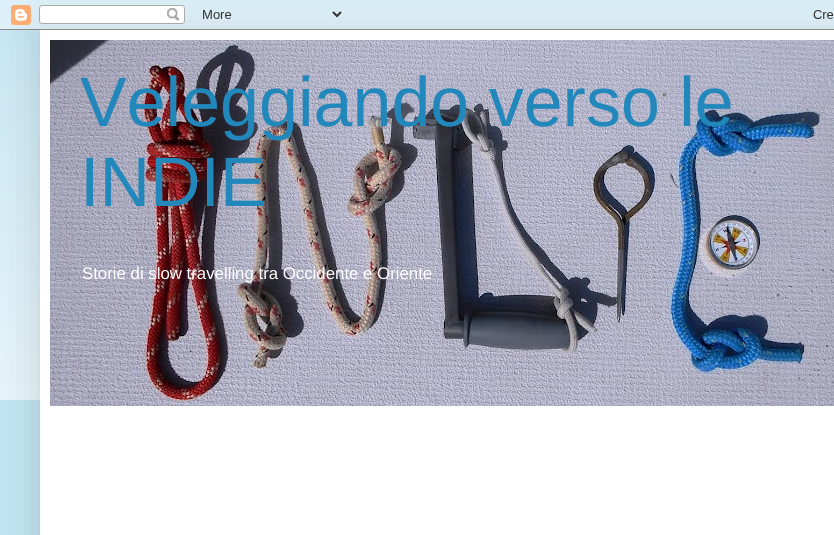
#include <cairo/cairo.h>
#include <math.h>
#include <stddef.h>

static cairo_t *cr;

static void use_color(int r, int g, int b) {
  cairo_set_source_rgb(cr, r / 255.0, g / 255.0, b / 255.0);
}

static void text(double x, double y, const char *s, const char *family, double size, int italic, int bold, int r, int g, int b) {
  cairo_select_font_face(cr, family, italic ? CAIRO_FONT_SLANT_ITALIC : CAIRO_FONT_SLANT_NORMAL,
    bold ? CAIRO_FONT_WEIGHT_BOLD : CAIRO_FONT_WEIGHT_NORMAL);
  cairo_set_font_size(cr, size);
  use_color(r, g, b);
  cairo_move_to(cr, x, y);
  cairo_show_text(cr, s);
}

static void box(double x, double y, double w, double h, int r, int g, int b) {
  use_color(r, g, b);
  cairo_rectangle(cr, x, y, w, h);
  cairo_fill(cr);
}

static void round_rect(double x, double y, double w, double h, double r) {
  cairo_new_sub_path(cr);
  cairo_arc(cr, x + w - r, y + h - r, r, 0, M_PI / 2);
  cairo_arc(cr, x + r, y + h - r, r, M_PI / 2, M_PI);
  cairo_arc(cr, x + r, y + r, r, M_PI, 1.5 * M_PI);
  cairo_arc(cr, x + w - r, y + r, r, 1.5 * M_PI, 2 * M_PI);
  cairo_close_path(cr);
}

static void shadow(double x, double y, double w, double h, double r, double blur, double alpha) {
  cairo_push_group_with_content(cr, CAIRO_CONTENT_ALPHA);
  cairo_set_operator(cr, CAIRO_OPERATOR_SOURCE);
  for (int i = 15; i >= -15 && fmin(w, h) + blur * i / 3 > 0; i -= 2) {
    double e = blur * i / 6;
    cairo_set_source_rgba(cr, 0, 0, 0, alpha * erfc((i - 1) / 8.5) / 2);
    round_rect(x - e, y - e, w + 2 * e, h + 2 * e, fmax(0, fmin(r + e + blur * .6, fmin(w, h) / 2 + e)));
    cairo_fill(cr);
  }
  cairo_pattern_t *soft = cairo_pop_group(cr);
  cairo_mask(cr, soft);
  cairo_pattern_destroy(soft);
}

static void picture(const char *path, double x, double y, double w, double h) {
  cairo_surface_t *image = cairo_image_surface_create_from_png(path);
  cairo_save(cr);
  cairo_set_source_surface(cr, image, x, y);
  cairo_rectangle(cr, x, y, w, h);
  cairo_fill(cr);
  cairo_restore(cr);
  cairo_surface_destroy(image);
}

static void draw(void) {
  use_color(194, 228, 242);
  cairo_paint(cr);
  picture("img_02.png", 0, 10, 834, 390);
  use_color(0, 0, 0);
  shadow(40, 30, 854, 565, 0, 20, 0.15);
  picture("img_01.png", 0, 0, 834, 30);
  box(40, 30, 794, 505, 255, 255, 255);
  picture("img_03.png", 50, 40, 784, 366);
  text(80, 126, "Veleggiando verso le", "Liberation Sans", 70, 0, 0, 34, 136, 187);
  text(80, 206, "INDIE", "Liberation Sans", 70, 0, 0, 34, 136, 187);
  text(82, 279, "Storie di slow travelling tra Occidente e Oriente", "Liberation Sans", 16.8, 0, 0, 255, 255, 255);
}

int main(void) {
  cairo_surface_t *surface = cairo_image_surface_create(CAIRO_FORMAT_RGB24, 834, 535);
  cr = cairo_create(surface);
  cairo_font_options_t *options = cairo_font_options_create();
  cairo_font_options_set_hint_metrics(options, CAIRO_HINT_METRICS_OFF);
  cairo_font_options_set_hint_style(options, CAIRO_HINT_STYLE_NONE);
  cairo_set_font_options(cr, options);
  cairo_set_miter_limit(cr, 4);
  draw();
  cairo_surface_write_to_png(surface, "out.png");
  cairo_font_options_destroy(options);
  cairo_destroy(cr);
  cairo_surface_destroy(surface);
  return 0;
}
